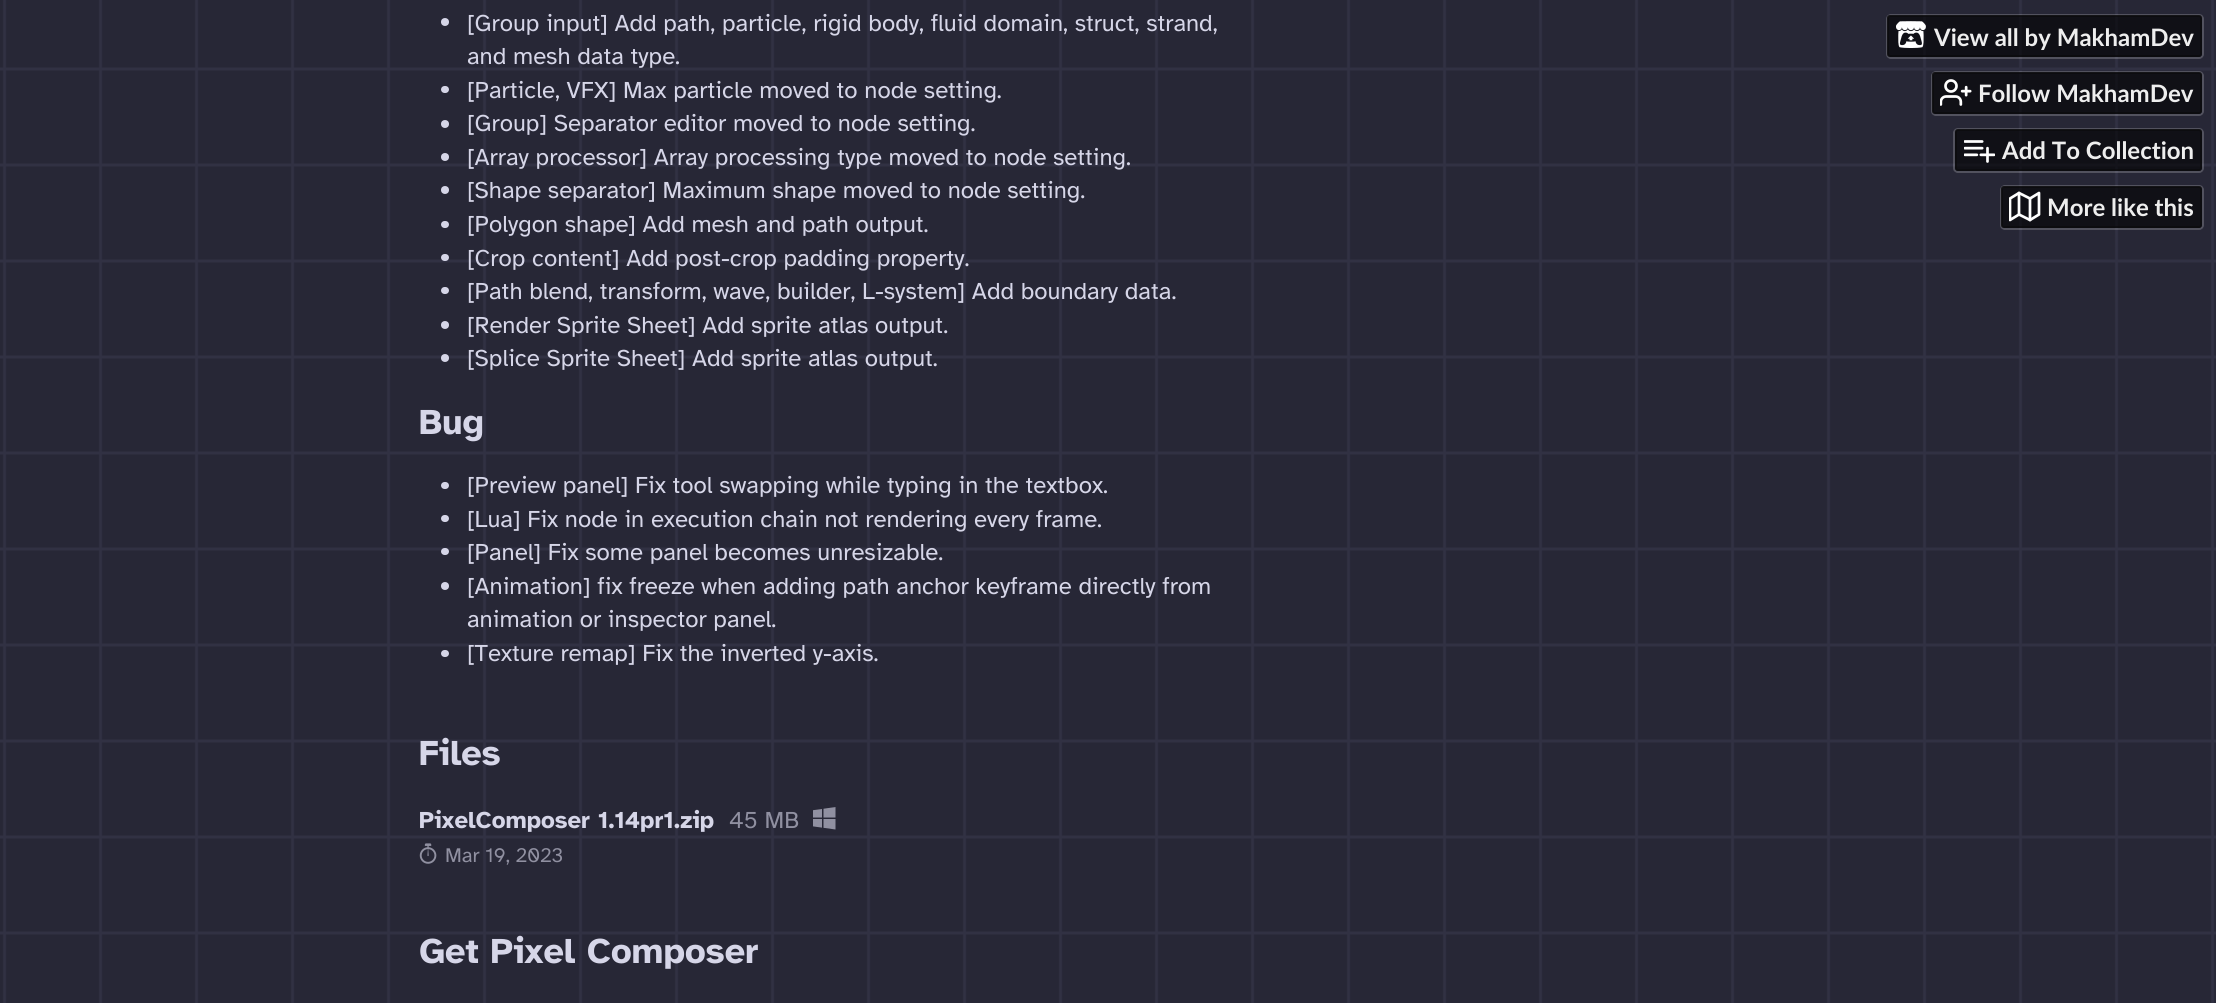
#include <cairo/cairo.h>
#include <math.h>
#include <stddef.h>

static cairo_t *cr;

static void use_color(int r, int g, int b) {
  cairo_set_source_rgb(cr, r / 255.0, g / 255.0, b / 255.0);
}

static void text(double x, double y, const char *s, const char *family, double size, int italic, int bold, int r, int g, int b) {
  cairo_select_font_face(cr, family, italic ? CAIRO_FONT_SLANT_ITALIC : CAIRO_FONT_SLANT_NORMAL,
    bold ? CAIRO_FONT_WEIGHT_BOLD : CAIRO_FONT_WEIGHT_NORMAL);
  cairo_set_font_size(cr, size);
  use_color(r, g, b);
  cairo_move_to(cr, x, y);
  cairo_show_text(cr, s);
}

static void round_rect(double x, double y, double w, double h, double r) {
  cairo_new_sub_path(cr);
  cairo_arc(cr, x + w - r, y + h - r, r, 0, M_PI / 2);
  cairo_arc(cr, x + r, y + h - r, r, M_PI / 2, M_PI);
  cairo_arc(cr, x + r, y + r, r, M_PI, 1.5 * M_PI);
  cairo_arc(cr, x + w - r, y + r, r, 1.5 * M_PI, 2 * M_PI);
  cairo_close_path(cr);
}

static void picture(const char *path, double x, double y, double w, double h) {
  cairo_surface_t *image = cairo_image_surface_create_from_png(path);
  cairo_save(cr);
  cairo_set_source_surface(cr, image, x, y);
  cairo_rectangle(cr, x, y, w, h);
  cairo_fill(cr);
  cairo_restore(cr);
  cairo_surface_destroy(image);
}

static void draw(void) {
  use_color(255, 255, 255);
  cairo_paint(cr);
  picture("img_01.png", 0, 0, 2216, 1003);
  use_color(214, 214, 232);
  cairo_arc(cr, 445, 22, 4, 0, 2 * M_PI);
  cairo_fill(cr);
  round_rect(441, 86, 8, 7, 3.5);
  cairo_fill(cr);
  cairo_arc(cr, 445, 124, 4, 0, 2 * M_PI);
  cairo_fill(cr);
  cairo_arc(cr, 445, 157, 4, 0, 2 * M_PI);
  cairo_fill(cr);
  cairo_arc(cr, 445, 190, 4, 0, 2 * M_PI);
  cairo_fill(cr);
  round_rect(441, 221, 8, 7, 3.5);
  cairo_fill(cr);
  round_rect(441, 254, 8, 7, 3.5);
  cairo_fill(cr);
  round_rect(441, 287, 8, 7, 3.5);
  cairo_fill(cr);
  cairo_arc(cr, 445, 325, 4, 0, 2 * M_PI);
  cairo_fill(cr);
  cairo_arc(cr, 445, 358, 4, 0, 2 * M_PI);
  cairo_fill(cr);
  round_rect(441, 482, 8, 7, 3.5);
  cairo_fill(cr);
  round_rect(441, 515, 8, 7, 3.5);
  cairo_fill(cr);
  round_rect(441, 548, 8, 7, 3.5);
  cairo_fill(cr);
  cairo_arc(cr, 445, 586, 4, 0, 2 * M_PI);
  cairo_fill(cr);
  round_rect(441, 650, 8, 7, 3.5);
  cairo_fill(cr);
  picture("img_02.png", 813, 807, 23, 23);
  picture("img_03.png", 419, 843, 18, 21);
  round_rect(1887, 15, 316, 43, 4);
  cairo_set_source_rgba(cr, 1, 1, 1, 0.2);
  cairo_stroke(cr);
  cairo_set_source_rgba(cr, 0, 0, 0, 0.6);
  round_rect(1887, 15, 315, 42, 3);
  cairo_fill(cr);
  round_rect(1888, 16, 313, 40, 2);
  cairo_set_source_rgba(cr, 0.039, 0.039, 0.039, 0.5);
  cairo_stroke(cr);
  picture("img_04.png", 1896, 21, 30, 27);
  round_rect(1932, 72, 271, 43, 4);
  cairo_set_source_rgba(cr, 1, 1, 1, 0.2);
  cairo_stroke(cr);
  cairo_set_source_rgba(cr, 0, 0, 0, 0.6);
  round_rect(1932, 72, 270, 42, 3);
  cairo_fill(cr);
  round_rect(1933, 73, 268, 40, 2);
  cairo_set_source_rgba(cr, 0.039, 0.039, 0.039, 0.5);
  cairo_stroke(cr);
  picture("img_05.png", 1940, 79, 32, 27);
  round_rect(1954, 129, 249, 43, 4);
  cairo_set_source_rgba(cr, 1, 1, 1, 0.2);
  cairo_stroke(cr);
  cairo_set_source_rgba(cr, 0, 0, 0, 0.6);
  round_rect(1955, 129, 247, 42, 3);
  cairo_fill(cr);
  round_rect(1956, 130, 245, 40, 2);
  cairo_set_source_rgba(cr, 0.039, 0.039, 0.039, 0.5);
  cairo_stroke(cr);
  picture("img_06.png", 1964, 140, 31, 23);
  round_rect(2001, 186, 202, 43, 4);
  cairo_set_source_rgba(cr, 1, 1, 1, 0.2);
  cairo_stroke(cr);
  cairo_set_source_rgba(cr, 0, 0, 0, 0.6);
  round_rect(2001, 186, 201, 42, 3);
  cairo_fill(cr);
  round_rect(2002, 187, 199, 40, 2);
  cairo_set_source_rgba(cr, 0.039, 0.039, 0.039, 0.5);
  cairo_stroke(cr);
  cairo_save(cr);
  cairo_rectangle(cr, 2009, 191, 33, 31);
  cairo_clip(cr);
  cairo_new_path(cr);
  cairo_move_to(cr, 2010, 198.5);
  cairo_line_to(cr, 2010, 220);
  cairo_line_to(cr, 2019, 214.5);
  cairo_line_to(cr, 2030, 220);
  cairo_line_to(cr, 2039, 214.5);
  cairo_line_to(cr, 2039, 193);
  cairo_line_to(cr, 2030, 198.5);
  cairo_line_to(cr, 2019, 193);
  cairo_close_path(cr);
  use_color(255, 255, 255);
  cairo_set_line_width(cr, 2.7);
  cairo_set_line_cap(cr, CAIRO_LINE_CAP_ROUND);
  cairo_set_line_join(cr, CAIRO_LINE_JOIN_ROUND);
  cairo_stroke(cr);
  cairo_restore(cr);
  cairo_new_path(cr);
  cairo_move_to(cr, 2019, 193);
  cairo_line_to(cr, 2019, 214.5);
  cairo_move_to(cr, 2030, 198.5);
  cairo_line_to(cr, 2030, 220);
  use_color(255, 255, 255);
  cairo_set_line_width(cr, 2.7);
  cairo_set_line_cap(cr, CAIRO_LINE_CAP_ROUND);
  cairo_set_line_join(cr, CAIRO_LINE_JOIN_ROUND);
  cairo_stroke(cr);
  text(467, 31, "[Group input] Add path, particle, rigid body, fluid domain, struct, strand,", "Atkinson Hyperlegible", 24, 0, 0, 214, 214, 232);
  text(467, 64, "and mesh data type.", "Atkinson Hyperlegible", 24, 0, 0, 214, 214, 232);
  text(467, 98, "[Particle, VFX] Max particle moved to node setting.", "Atkinson Hyperlegible", 24, 0, 0, 214, 214, 232);
  text(467, 131, "[Group] Separator editor moved to node setting.", "Atkinson Hyperlegible", 24, 0, 0, 214, 214, 232);
  text(467, 165, "[Array processor] Array processing type moved to node setting.", "Atkinson Hyperlegible", 24, 0, 0, 214, 214, 232);
  text(467, 198, "[Shape separator] Maximum shape moved to node setting.", "Atkinson Hyperlegible", 24, 0, 0, 214, 214, 232);
  text(467, 232, "[Polygon shape] Add mesh and path output.", "Atkinson Hyperlegible", 24, 0, 0, 214, 214, 232);
  text(467, 266, "[Crop content] Add post-crop padding property.", "Atkinson Hyperlegible", 24, 0, 0, 214, 214, 232);
  text(467, 299, "[Path blend, transform, wave, builder, L-system] Add boundary data.", "Atkinson Hyperlegible", 24, 0, 0, 214, 214, 232);
  text(467, 333, "[Render Sprite Sheet] Add sprite atlas output.", "Atkinson Hyperlegible", 24, 0, 0, 214, 214, 232);
  text(467, 366, "[Splice Sprite Sheet] Add sprite atlas output.", "Atkinson Hyperlegible", 24, 0, 0, 214, 214, 232);
  text(419, 434, "Bug", "Atkinson Hyperlegible", 36, 0, 1, 214, 214, 232);
  text(467, 493, "[Preview panel] Fix tool swapping while typing in the textbox.", "Atkinson Hyperlegible", 24, 0, 0, 214, 214, 232);
  text(467, 527, "[Lua] Fix node in execution chain not rendering every frame.", "Atkinson Hyperlegible", 24, 0, 0, 214, 214, 232);
  text(467, 560, "[Panel] Fix some panel becomes unresizable.", "Atkinson Hyperlegible", 24, 0, 0, 214, 214, 232);
  text(467, 594, "[Animation] fix freeze when adding path anchor keyframe directly from", "Atkinson Hyperlegible", 24, 0, 0, 214, 214, 232);
  text(467, 627, "animation or inspector panel.", "Atkinson Hyperlegible", 24, 0, 0, 214, 214, 232);
  text(467, 661, "[Texture remap] Fix the inverted y-axis.", "Atkinson Hyperlegible", 24, 0, 0, 214, 214, 232);
  text(419, 765, "Files", "Atkinson Hyperlegible", 36, 0, 1, 214, 214, 232);
  text(419, 828, "PixelComposer 1.14pr1.zip", "Atkinson Hyperlegible", 24, 0, 1, 214, 214, 232);
  text(729, 828, "45 MB", "Atkinson Hyperlegible", 24, 0, 0, 144, 144, 161);
  text(445, 862, "Mar 19, 2023", "Atkinson Hyperlegible", 20.5, 0, 0, 144, 144, 161);
  text(419, 963, "Get Pixel Composer", "Atkinson Hyperlegible", 36, 0, 1, 214, 214, 232);
  text(1934, 46, "View all by MakhamDev", "Lato", 24, 0, 1, 238, 238, 238);
  text(1978, 102, "Follow MakhamDev", "Lato", 24, 0, 1, 238, 238, 238);
  text(2002, 159, "Add To Collection", "Lato", 24, 0, 1, 238, 238, 238);
  text(2047, 216, "More like this", "Lato", 24, 0, 1, 238, 238, 238);
}

int main(void) {
  cairo_surface_t *surface = cairo_image_surface_create(CAIRO_FORMAT_RGB24, 2216, 1003);
  cr = cairo_create(surface);
  cairo_font_options_t *options = cairo_font_options_create();
  cairo_font_options_set_hint_metrics(options, CAIRO_HINT_METRICS_OFF);
  cairo_font_options_set_hint_style(options, CAIRO_HINT_STYLE_NONE);
  cairo_set_font_options(cr, options);
  cairo_set_miter_limit(cr, 4);
  draw();
  cairo_surface_write_to_png(surface, "out.png");
  cairo_font_options_destroy(options);
  cairo_destroy(cr);
  cairo_surface_destroy(surface);
  return 0;
}
